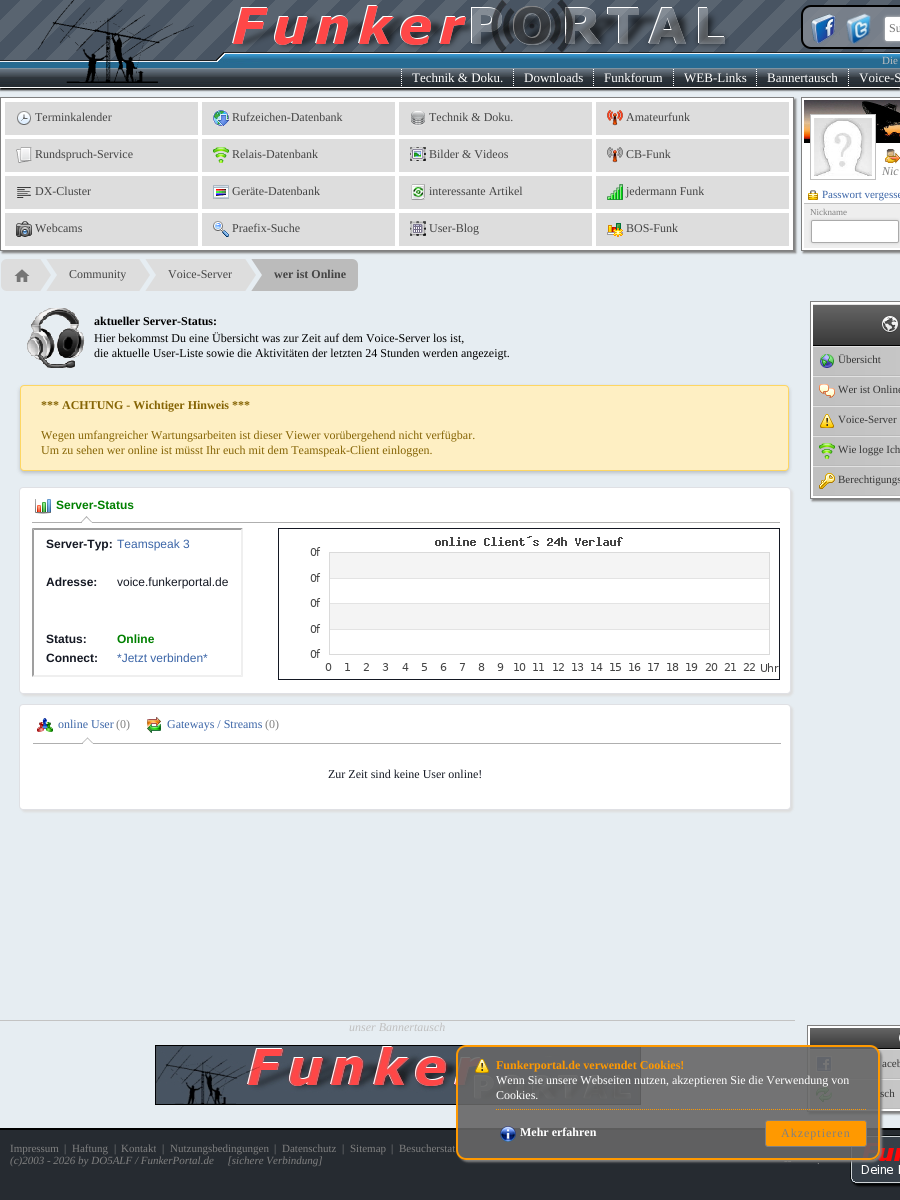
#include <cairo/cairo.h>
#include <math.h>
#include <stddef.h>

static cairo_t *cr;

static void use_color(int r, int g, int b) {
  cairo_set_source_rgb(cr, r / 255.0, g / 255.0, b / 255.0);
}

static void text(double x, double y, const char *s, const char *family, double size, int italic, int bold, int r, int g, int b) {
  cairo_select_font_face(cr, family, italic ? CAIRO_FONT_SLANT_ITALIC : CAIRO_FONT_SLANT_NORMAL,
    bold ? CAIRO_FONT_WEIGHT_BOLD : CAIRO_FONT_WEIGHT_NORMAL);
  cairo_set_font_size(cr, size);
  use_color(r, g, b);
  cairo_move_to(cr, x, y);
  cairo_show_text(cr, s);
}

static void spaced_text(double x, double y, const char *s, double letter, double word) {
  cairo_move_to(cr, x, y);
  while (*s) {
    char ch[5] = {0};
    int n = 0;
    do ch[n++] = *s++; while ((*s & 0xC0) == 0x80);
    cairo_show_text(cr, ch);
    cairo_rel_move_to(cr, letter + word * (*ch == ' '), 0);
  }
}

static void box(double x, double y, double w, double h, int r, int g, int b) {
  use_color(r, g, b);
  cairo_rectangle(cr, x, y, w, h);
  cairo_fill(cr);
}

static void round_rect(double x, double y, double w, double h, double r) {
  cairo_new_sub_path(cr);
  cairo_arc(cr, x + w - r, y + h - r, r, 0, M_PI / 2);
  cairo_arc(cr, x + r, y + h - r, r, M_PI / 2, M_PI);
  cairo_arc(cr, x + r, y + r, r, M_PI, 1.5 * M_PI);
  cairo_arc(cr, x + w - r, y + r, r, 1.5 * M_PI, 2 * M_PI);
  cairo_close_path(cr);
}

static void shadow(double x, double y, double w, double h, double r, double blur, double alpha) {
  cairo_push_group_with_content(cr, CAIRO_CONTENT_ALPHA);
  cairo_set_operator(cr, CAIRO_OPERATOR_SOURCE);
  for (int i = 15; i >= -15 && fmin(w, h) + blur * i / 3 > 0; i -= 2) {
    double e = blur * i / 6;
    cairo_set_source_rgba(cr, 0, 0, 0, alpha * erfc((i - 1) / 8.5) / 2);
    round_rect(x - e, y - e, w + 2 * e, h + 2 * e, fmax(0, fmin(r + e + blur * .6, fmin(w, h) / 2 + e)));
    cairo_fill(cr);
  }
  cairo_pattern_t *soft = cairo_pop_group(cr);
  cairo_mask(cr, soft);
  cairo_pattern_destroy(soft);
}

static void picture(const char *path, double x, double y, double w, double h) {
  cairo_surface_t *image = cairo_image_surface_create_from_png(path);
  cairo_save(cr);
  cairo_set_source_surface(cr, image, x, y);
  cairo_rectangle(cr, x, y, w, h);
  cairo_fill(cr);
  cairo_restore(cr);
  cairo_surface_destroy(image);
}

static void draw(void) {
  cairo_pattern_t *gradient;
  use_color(230, 237, 242);
  cairo_paint(cr);
  use_color(0, 0, 0);
  shadow(0, 2, 900, 88, 0, 1, 1);
  box(0, 0, 900, 60, 72, 84, 98);
  picture("img_01.png", 0, 0, 900, 60);
  box(0, 87, 900, 1, 255, 255, 255);
  picture("img_05.png", 0, 60, 450, 27);
  picture("img_06.png", 450, 52, 450, 35);
  picture("img_02.png", 38, 0, 691, 83);
  cairo_set_source_rgba(cr, 0.514, 0.541, 0.58, 0.8);
  round_rect(802, 6, 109, 42, 9);
  cairo_fill_preserve(cr);
  use_color(0, 0, 0);
  cairo_stroke(cr);
  picture("img_03.png", 811, 14, 29, 30);
  picture("img_04.png", 846, 13, 25, 31);
  use_color(204, 204, 204);
  shadow(885, 17, 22, 24, 2, 1.5, 1);
  use_color(255, 255, 255);
  round_rect(885.5, 17.5, 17, 23, 1.5);
  cairo_fill_preserve(cr);
  cairo_set_line_width(cr, 1);
  cairo_stroke(cr);
  cairo_new_path(cr);
  cairo_move_to(cr, 401.5, 69);
  cairo_line_to(cr, 401.5, 87);
  cairo_set_dash(cr, (double[]){1, 1}, 2, 0);
  cairo_stroke(cr);
  cairo_new_path(cr);
  cairo_move_to(cr, 513.5, 69);
  cairo_line_to(cr, 513.5, 87);
  cairo_stroke(cr);
  cairo_new_path(cr);
  cairo_move_to(cr, 593.5, 69);
  cairo_line_to(cr, 593.5, 87);
  cairo_stroke(cr);
  cairo_new_path(cr);
  cairo_move_to(cr, 673.5, 69);
  cairo_line_to(cr, 673.5, 87);
  cairo_stroke(cr);
  cairo_new_path(cr);
  cairo_move_to(cr, 756.5, 69);
  cairo_line_to(cr, 756.5, 87);
  cairo_stroke(cr);
  cairo_new_path(cr);
  cairo_move_to(cr, 848.5, 69);
  cairo_line_to(cr, 848.5, 87);
  cairo_stroke(cr);
  use_color(128, 128, 128);
  shadow(2, 99, 794, 154, 0, 1, 1);
  use_color(255, 255, 255);
  cairo_rectangle(cr, 0.5, 97.5, 793, 153);
  cairo_fill_preserve(cr);
  use_color(128, 128, 128);
  cairo_set_dash(cr, NULL, 0, 0);
  cairo_stroke(cr);
  box(5, 102, 193, 33, 221, 221, 221);
  picture("img_07.png", 17, 111, 14, 14);
  box(202, 102, 193, 33, 221, 221, 221);
  picture("img_08.png", 213, 110, 16, 16);
  box(399, 102, 193, 33, 221, 221, 221);
  picture("img_09.png", 411, 111, 14, 15);
  box(596, 102, 193, 33, 221, 221, 221);
  picture("img_10.png", 607, 110, 16, 16);
  box(5, 139, 193, 33, 221, 221, 221);
  picture("img_11.png", 16, 147, 16, 16);
  box(202, 139, 193, 33, 221, 221, 221);
  picture("img_12.png", 213, 147, 16, 16);
  box(399, 139, 193, 33, 221, 221, 221);
  picture("img_13.png", 410, 147, 16, 14);
  box(596, 139, 193, 33, 221, 221, 221);
  picture("img_14.png", 607, 147, 16, 16);
  box(5, 176, 193, 33, 221, 221, 221);
  picture("img_15.png", 17, 187, 14, 11);
  box(202, 176, 193, 33, 221, 221, 221);
  picture("img_16.png", 213, 185, 16, 14);
  box(399, 176, 193, 33, 221, 221, 221);
  picture("img_17.png", 411, 184, 14, 16);
  box(596, 176, 193, 33, 221, 221, 221);
  picture("img_18.png", 607, 184, 16, 16);
  box(5, 213, 193, 33, 221, 221, 221);
  picture("img_19.png", 16, 221, 16, 16);
  box(202, 213, 193, 33, 221, 221, 221);
  picture("img_20.png", 213, 221, 16, 16);
  box(399, 213, 193, 33, 221, 221, 221);
  picture("img_21.png", 410, 221, 16, 15);
  box(596, 213, 193, 33, 221, 221, 221);
  picture("img_22.png", 607, 223, 16, 14);
  use_color(128, 128, 128);
  shadow(803, 99, 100, 154, 0, 1, 1);
  use_color(255, 255, 255);
  cairo_rectangle(cr, 801.5, 97.5, 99, 153);
  cairo_fill_preserve(cr);
  use_color(128, 128, 128);
  cairo_stroke(cr);
  picture("img_23.png", 804, 100, 96, 43);
  box(811, 115, 64, 28, 255, 255, 255);
  cairo_rectangle(cr, 810.5, 114.5, 65, 65);
  use_color(192, 192, 192);
  cairo_stroke(cr);
  picture("img_24.png", 814, 118, 58, 58);
  picture("img_25.png", 885, 149, 15, 15);
  picture("img_26.png", 808, 190, 10, 10);
  box(804, 204, 96, 44, 238, 238, 238);
  box(804, 203, 96, 1, 192, 192, 192);
  use_color(204, 204, 204);
  shadow(811, 220, 88, 23, 2, 1.5, 1);
  use_color(255, 255, 255);
  round_rect(811.5, 220.5, 87, 22, 1.5);
  cairo_fill_preserve(cr);
  use_color(170, 170, 170);
  cairo_stroke(cr);
  use_color(221, 221, 221);
  cairo_new_path(cr);
  cairo_move_to(cr, 7, 259);
  cairo_line_to(cr, 39, 259);
  cairo_line_to(cr, 39, 291);
  cairo_line_to(cr, 7, 291);
  cairo_curve_to(cr, 3.5, 291, 1, 288.5, 1, 285);
  cairo_line_to(cr, 1, 265);
  cairo_curve_to(cr, 1, 261.5, 3.5, 259, 7, 259);
  cairo_close_path(cr);
  cairo_fill(cr);
  picture("img_27.png", 14, 269, 16, 13);
  cairo_save(cr);
  cairo_rectangle(cr, 0, 259, 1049, 32);
  cairo_clip(cr);
  cairo_new_path(cr);
  cairo_move_to(cr, 39, 293);
  cairo_line_to(cr, 39, 257);
  cairo_line_to(cr, 51, 275);
  cairo_close_path(cr);
  cairo_fill(cr);
  cairo_restore(cr);
  box(57, 259, 81, 32, 221, 221, 221);
  cairo_save(cr);
  cairo_rectangle(cr, 0, 259, 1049, 32);
  cairo_clip(cr);
  cairo_new_path(cr);
  cairo_move_to(cr, 45, 257);
  cairo_line_to(cr, 57, 257);
  cairo_line_to(cr, 57, 275);
  cairo_close_path(cr);
  cairo_move_to(cr, 57, 293);
  cairo_line_to(cr, 45, 293);
  cairo_line_to(cr, 57, 275);
  cairo_close_path(cr);
  cairo_fill(cr);
  cairo_new_path(cr);
  cairo_move_to(cr, 138, 293);
  cairo_line_to(cr, 138, 257);
  cairo_line_to(cr, 150, 275);
  cairo_close_path(cr);
  cairo_fill(cr);
  cairo_restore(cr);
  box(156, 259, 88, 32, 221, 221, 221);
  cairo_save(cr);
  cairo_rectangle(cr, 0, 259, 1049, 32);
  cairo_clip(cr);
  cairo_new_path(cr);
  cairo_move_to(cr, 144, 257);
  cairo_line_to(cr, 156, 257);
  cairo_line_to(cr, 156, 275);
  cairo_close_path(cr);
  cairo_move_to(cr, 156, 293);
  cairo_line_to(cr, 144, 293);
  cairo_line_to(cr, 156, 275);
  cairo_close_path(cr);
  cairo_fill(cr);
  cairo_new_path(cr);
  cairo_move_to(cr, 244, 293);
  cairo_line_to(cr, 244, 257);
  cairo_line_to(cr, 256, 275);
  cairo_close_path(cr);
  cairo_fill(cr);
  cairo_restore(cr);
  use_color(187, 187, 187);
  cairo_new_path(cr);
  cairo_move_to(cr, 262, 259);
  cairo_line_to(cr, 352, 259);
  cairo_curve_to(cr, 355.5, 259, 358, 261.5, 358, 265);
  cairo_line_to(cr, 358, 285);
  cairo_curve_to(cr, 358, 288.5, 355.5, 291, 352, 291);
  cairo_line_to(cr, 262, 291);
  cairo_close_path(cr);
  cairo_fill(cr);
  cairo_save(cr);
  cairo_rectangle(cr, 0, 259, 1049, 32);
  cairo_clip(cr);
  cairo_new_path(cr);
  cairo_move_to(cr, 250, 257);
  cairo_line_to(cr, 262, 257);
  cairo_line_to(cr, 262, 275);
  cairo_close_path(cr);
  cairo_move_to(cr, 262, 293);
  cairo_line_to(cr, 250, 293);
  cairo_line_to(cr, 262, 275);
  cairo_close_path(cr);
  cairo_fill(cr);
  cairo_restore(cr);
  picture("img_28.png", 27, 308, 58, 60);
  use_color(0, 0, 0);
  shadow(20, 387, 769, 86, 4, 2, 0.2);
  use_color(254, 239, 195);
  round_rect(20.5, 385.5, 768, 85, 3.5);
  cairo_fill_preserve(cr);
  use_color(253, 214, 99);
  cairo_stroke(cr);
  use_color(221, 221, 221);
  shadow(21, 489, 772, 207, 4, 1, 1);
  use_color(255, 255, 255);
  round_rect(19.5, 487.5, 771, 206, 3.5);
  cairo_fill_preserve(cr);
  use_color(223, 224, 228);
  cairo_stroke(cr);
  picture("img_29.png", 35, 499, 16, 15);
  box(32, 522, 50, 1, 175, 175, 175);
  cairo_new_path(cr);
  cairo_move_to(cr, 86.5, 516);
  cairo_line_to(cr, 92, 522);
  cairo_line_to(cr, 91.5, 522.5);
  cairo_line_to(cr, 86, 517);
  cairo_close_path(cr);
  cairo_fill(cr);
  cairo_new_path(cr);
  cairo_move_to(cr, 86.5, 516);
  cairo_line_to(cr, 87, 517);
  cairo_line_to(cr, 81.5, 522.5);
  cairo_line_to(cr, 81, 522);
  cairo_close_path(cr);
  cairo_fill(cr);
  box(92, 522, 688, 1, 175, 175, 175);
  use_color(159, 159, 159);
  cairo_new_path(cr);
  cairo_move_to(cr, 32, 528);
  cairo_line_to(cr, 243, 528);
  cairo_line_to(cr, 241, 530);
  cairo_line_to(cr, 34, 530);
  cairo_close_path(cr);
  cairo_fill(cr);
  use_color(239, 239, 239);
  cairo_new_path(cr);
  cairo_move_to(cr, 243, 528);
  cairo_line_to(cr, 243, 677);
  cairo_line_to(cr, 241, 675);
  cairo_line_to(cr, 241, 530);
  cairo_close_path(cr);
  cairo_fill(cr);
  cairo_new_path(cr);
  cairo_move_to(cr, 243, 677);
  cairo_line_to(cr, 32, 677);
  cairo_line_to(cr, 34, 675);
  cairo_line_to(cr, 241, 675);
  cairo_close_path(cr);
  cairo_fill(cr);
  use_color(159, 159, 159);
  cairo_new_path(cr);
  cairo_move_to(cr, 32, 677);
  cairo_line_to(cr, 32, 528);
  cairo_line_to(cr, 34, 530);
  cairo_line_to(cr, 34, 675);
  cairo_close_path(cr);
  cairo_fill(cr);
  cairo_rectangle(cr, 278.5, 528.5, 501, 151);
  use_color(20, 24, 35);
  cairo_stroke(cr);
  picture("img_30.png", 310, 536, 469, 136);
  use_color(221, 221, 221);
  shadow(21, 706, 772, 106, 4, 1, 1);
  use_color(255, 255, 255);
  round_rect(19.5, 704.5, 771, 105, 3.5);
  cairo_fill_preserve(cr);
  use_color(223, 224, 228);
  cairo_stroke(cr);
  picture("img_31.png", 37, 718, 16, 14);
  picture("img_32.png", 147, 717, 14, 16);
  box(33, 743, 50, 1, 175, 175, 175);
  cairo_new_path(cr);
  cairo_move_to(cr, 87.5, 737.5);
  cairo_line_to(cr, 93, 743);
  cairo_line_to(cr, 92.5, 743.5);
  cairo_line_to(cr, 87, 738);
  cairo_close_path(cr);
  cairo_fill(cr);
  cairo_new_path(cr);
  cairo_move_to(cr, 87.5, 737.5);
  cairo_line_to(cr, 88, 738);
  cairo_line_to(cr, 82.5, 743.5);
  cairo_line_to(cr, 82, 743);
  cairo_close_path(cr);
  cairo_fill(cr);
  box(93, 743, 688, 1, 175, 175, 175);
  use_color(128, 128, 128);
  shadow(812, 303, 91, 198, 0, 1, 1);
  use_color(255, 255, 255);
  cairo_rectangle(cr, 810.5, 301.5, 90, 197);
  cairo_fill_preserve(cr);
  use_color(128, 128, 128);
  cairo_stroke(cr);
  gradient = cairo_pattern_create_linear(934, 305, 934, 345);
  cairo_pattern_add_color_stop_rgba(gradient, 0, 0.396, 0.396, 0.396, 1);
  cairo_pattern_add_color_stop_rgba(gradient, 1, 0.22, 0.22, 0.22, 1);
  cairo_set_source(cr, gradient);
  cairo_pattern_destroy(gradient);
  cairo_rectangle(cr, 813, 305, 87, 40);
  cairo_fill(cr);
  box(813, 304, 87, 1, 226, 226, 226);
  box(813, 345, 87, 1, 0, 0, 0);
  picture("img_33.png", 882, 316, 16, 17);
  gradient = cairo_pattern_create_linear(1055, 361, 813, 361);
  cairo_pattern_add_color_stop_rgba(gradient, 0, 0.816, 0.816, 0.816, 1);
  cairo_pattern_add_color_stop_rgba(gradient, 1, 0.753, 0.753, 0.753, 1);
  cairo_set_source(cr, gradient);
  cairo_pattern_destroy(gradient);
  cairo_rectangle(cr, 813, 347, 87, 28);
  cairo_fill(cr);
  box(813, 346, 87, 1, 226, 226, 226);
  box(813, 375, 87, 1, 185, 185, 185);
  picture("img_34.png", 820, 354, 14, 14);
  gradient = cairo_pattern_create_linear(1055, 391, 813, 391);
  cairo_pattern_add_color_stop_rgba(gradient, 0, 0.816, 0.816, 0.816, 1);
  cairo_pattern_add_color_stop_rgba(gradient, 1, 0.753, 0.753, 0.753, 1);
  cairo_set_source(cr, gradient);
  cairo_pattern_destroy(gradient);
  cairo_rectangle(cr, 813, 377, 87, 28);
  cairo_fill(cr);
  box(813, 376, 87, 1, 226, 226, 226);
  box(813, 405, 87, 1, 185, 185, 185);
  picture("img_35.png", 819, 384, 16, 14);
  gradient = cairo_pattern_create_linear(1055, 421, 813, 421);
  cairo_pattern_add_color_stop_rgba(gradient, 0, 0.816, 0.816, 0.816, 1);
  cairo_pattern_add_color_stop_rgba(gradient, 1, 0.753, 0.753, 0.753, 1);
  cairo_set_source(cr, gradient);
  cairo_pattern_destroy(gradient);
  cairo_rectangle(cr, 813, 407, 87, 28);
  cairo_fill(cr);
  box(813, 406, 87, 1, 226, 226, 226);
  box(813, 435, 87, 1, 185, 185, 185);
  picture("img_36.png", 820, 414, 14, 14);
  gradient = cairo_pattern_create_linear(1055, 451, 813, 451);
  cairo_pattern_add_color_stop_rgba(gradient, 0, 0.816, 0.816, 0.816, 1);
  cairo_pattern_add_color_stop_rgba(gradient, 1, 0.753, 0.753, 0.753, 1);
  cairo_set_source(cr, gradient);
  cairo_pattern_destroy(gradient);
  cairo_rectangle(cr, 813, 437, 87, 28);
  cairo_fill(cr);
  box(813, 436, 87, 1, 226, 226, 226);
  box(813, 465, 87, 1, 185, 185, 185);
  picture("img_37.png", 819, 443, 16, 16);
  gradient = cairo_pattern_create_linear(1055, 481, 813, 481);
  cairo_pattern_add_color_stop_rgba(gradient, 0, 0.816, 0.816, 0.816, 1);
  cairo_pattern_add_color_stop_rgba(gradient, 1, 0.753, 0.753, 0.753, 1);
  cairo_set_source(cr, gradient);
  cairo_pattern_destroy(gradient);
  cairo_rectangle(cr, 813, 467, 87, 28);
  cairo_fill(cr);
  box(813, 466, 87, 1, 226, 226, 226);
  box(813, 495, 87, 1, 185, 185, 185);
  picture("img_38.png", 819, 473, 16, 16);
  box(0, 1020, 795, 1, 195, 195, 195);
  picture("img_39.png", 155, 1045, 486, 60);
  use_color(128, 128, 128);
  shadow(809, 1027, 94, 87, 0, 1, 1);
  use_color(255, 255, 255);
  cairo_rectangle(cr, 807.5, 1025.5, 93, 86);
  cairo_fill_preserve(cr);
  use_color(128, 128, 128);
  cairo_stroke(cr);
  gradient = cairo_pattern_create_linear(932, 1028, 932, 1048);
  cairo_pattern_add_color_stop_rgba(gradient, 0, 0.396, 0.396, 0.396, 1);
  cairo_pattern_add_color_stop_rgba(gradient, 1, 0.22, 0.22, 0.22, 1);
  cairo_set_source(cr, gradient);
  cairo_pattern_destroy(gradient);
  cairo_rectangle(cr, 810, 1028, 90, 20);
  cairo_fill(cr);
  box(810, 1048, 90, 1, 0, 0, 0);
  picture("img_40.png", 899, 1033, 1, 9);
  gradient = cairo_pattern_create_linear(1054, 1064, 810, 1064);
  cairo_pattern_add_color_stop_rgba(gradient, 0, 0.816, 0.816, 0.816, 1);
  cairo_pattern_add_color_stop_rgba(gradient, 1, 0.753, 0.753, 0.753, 1);
  cairo_set_source(cr, gradient);
  cairo_pattern_destroy(gradient);
  cairo_rectangle(cr, 810, 1050, 90, 28);
  cairo_fill(cr);
  box(810, 1049, 90, 1, 226, 226, 226);
  box(810, 1078, 90, 1, 185, 185, 185);
  picture("img_41.png", 816, 1056, 16, 16);
  gradient = cairo_pattern_create_linear(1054, 1094, 810, 1094);
  cairo_pattern_add_color_stop_rgba(gradient, 0, 0.816, 0.816, 0.816, 1);
  cairo_pattern_add_color_stop_rgba(gradient, 1, 0.753, 0.753, 0.753, 1);
  cairo_set_source(cr, gradient);
  cairo_pattern_destroy(gradient);
  cairo_rectangle(cr, 810, 1080, 90, 28);
  cairo_fill(cr);
  box(810, 1079, 90, 1, 226, 226, 226);
  box(810, 1108, 90, 1, 185, 185, 185);
  picture("img_42.png", 816, 1086, 16, 16);
  box(0, 1130, 900, 70, 38, 43, 49);
  box(0, 1128, 900, 2, 0, 0, 0);
  use_color(0, 0, 0);
  shadow(852, 1137, 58, 49, 7, 1, 1);
  picture("img_45.png", 850, 1135, 50, 49);
  cairo_save(cr);
  cairo_set_fill_rule(cr, CAIRO_FILL_RULE_EVEN_ODD);
  cairo_new_path(cr);
  cairo_move_to(cr, 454, 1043);
  cairo_line_to(cr, 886, 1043);
  cairo_line_to(cr, 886, 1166);
  cairo_line_to(cr, 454, 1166);
  cairo_close_path(cr);
  cairo_move_to(cr, 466, 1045);
  cairo_line_to(cr, 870, 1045);
  cairo_curve_to(cr, 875.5, 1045, 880, 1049.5, 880, 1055);
  cairo_line_to(cr, 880, 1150);
  cairo_curve_to(cr, 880, 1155.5, 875.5, 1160, 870, 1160);
  cairo_line_to(cr, 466, 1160);
  cairo_curve_to(cr, 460.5, 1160, 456, 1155.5, 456, 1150);
  cairo_line_to(cr, 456, 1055);
  cairo_curve_to(cr, 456, 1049.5, 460.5, 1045, 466, 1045);
  cairo_close_path(cr);
  cairo_clip(cr);
  use_color(128, 128, 128);
  shadow(458, 1047, 424, 115, 10, 1, 1);
  cairo_restore(cr);
  cairo_set_source_rgba(cr, 0.4, 0.4, 0.4, 0.9);
  round_rect(457, 1046, 422, 113, 9);
  cairo_fill_preserve(cr);
  use_color(255, 153, 0);
  cairo_set_line_width(cr, 2);
  cairo_stroke(cr);
  picture("img_43.png", 475, 1059, 14, 14);
  cairo_new_path(cr);
  cairo_move_to(cr, 496, 1109.5);
  cairo_line_to(cr, 680, 1109.5);
  cairo_set_line_width(cr, 1);
  cairo_set_dash(cr, (double[]){1, 1}, 2, 0);
  cairo_stroke(cr);
  picture("img_44.png", 500, 1126, 16, 16);
  cairo_new_path(cr);
  cairo_move_to(cr, 681, 1109.5);
  cairo_line_to(cr, 867, 1109.5);
  cairo_stroke(cr);
  round_rect(765.5, 1120.5, 101, 26, 2.5);
  cairo_fill_preserve(cr);
  use_color(128, 128, 128);
  cairo_set_dash(cr, NULL, 0, 0);
  cairo_stroke(cr);
  text(889, 32, "Su", "Liberation Serif", 12, 0, 0, 117, 117, 117);
  text(882, 64, "Die", "Liberation Serif", 11, 0, 0, 192, 192, 192);
  text(412, 82, "Technik & Doku.", "Liberation Serif", 13, 0, 0, 255, 255, 255);
  text(524, 82, "Downloads", "Liberation Serif", 13, 0, 0, 255, 255, 255);
  text(604, 82, "Funkforum", "Liberation Serif", 13, 0, 0, 255, 255, 255);
  text(684, 82, "WEB-Links", "Liberation Serif", 13, 0, 0, 255, 255, 255);
  text(767, 82, "Bannertausch", "Liberation Serif", 13, 0, 0, 255, 255, 255);
  text(859, 82, "Voice-S", "Liberation Serif", 13, 0, 0, 255, 255, 255);
  text(35, 121, "Terminkalender", "Liberation Serif", 12, 0, 0, 68, 68, 68);
  text(232, 121, "Rufzeichen-Datenbank", "Liberation Serif", 12, 0, 0, 68, 68, 68);
  text(429, 121, "Technik & Doku.", "Liberation Serif", 12, 0, 0, 68, 68, 68);
  text(626, 121, "Amateurfunk", "Liberation Serif", 12, 0, 0, 68, 68, 68);
  text(35, 158, "Rundspruch-Service", "Liberation Serif", 12, 0, 0, 68, 68, 68);
  text(232, 158, "Relais-Datenbank", "Liberation Serif", 12, 0, 0, 68, 68, 68);
  text(429, 158, "Bilder & Videos", "Liberation Serif", 12, 0, 0, 68, 68, 68);
  text(626, 158, "CB-Funk", "Liberation Serif", 12, 0, 0, 68, 68, 68);
  text(35, 195, "DX-Cluster", "Liberation Serif", 12, 0, 0, 68, 68, 68);
  text(232, 195, "Geräte-Datenbank", "Liberation Serif", 12, 0, 0, 68, 68, 68);
  text(429, 195, "interessante Artikel", "Liberation Serif", 12, 0, 0, 68, 68, 68);
  text(626, 195, "jedermann Funk", "Liberation Serif", 12, 0, 0, 68, 68, 68);
  text(35, 232, "Webcams", "Liberation Serif", 12, 0, 0, 68, 68, 68);
  text(232, 232, "Praefix-Suche", "Liberation Serif", 12, 0, 0, 68, 68, 68);
  text(429, 232, "User-Blog", "Liberation Serif", 12, 0, 0, 68, 68, 68);
  text(626, 232, "BOS-Funk", "Liberation Serif", 12, 0, 0, 68, 68, 68);
  text(882, 175, "Nic", "Liberation Serif", 12, 1, 0, 128, 128, 128);
  text(822, 198, "Passwort vergesse", "Liberation Serif", 11, 0, 0, 59, 101, 167);
  text(810, 215, "Nickname", "Liberation Serif", 9, 0, 0, 128, 128, 128);
  text(69, 278, "Community", "Liberation Serif", 12, 0, 0, 68, 68, 68);
  text(168, 278, "Voice-Server", "Liberation Serif", 12, 0, 0, 68, 68, 68);
  text(274, 278, "wer ist Online", "Liberation Serif", 12, 0, 1, 68, 68, 68);
  text(94, 325, "aktueller Server-Status:", "Liberation Serif", 12, 0, 1, 0, 0, 0);
  text(94, 342, "Hier bekommst Du eine Übersicht was zur Zeit auf dem Voice-Server los ist,", "Liberation Serif", 12, 0, 0, 0, 0, 0);
  text(94, 357, "die aktuelle User-Liste sowie die Aktivitäten der letzten 24 Stunden werden angezeigt.", "Liberation Serif", 12, 0, 0, 0, 0, 0);
  text(41, 409, "*** ACHTUNG - Wichtiger Hinweis ***", "Liberation Serif", 12, 0, 1, 133, 100, 4);
  text(41, 439, "Wegen umfangreicher Wartungsarbeiten ist dieser Viewer vorübergehend nicht verfügbar.", "Liberation Serif", 12, 0, 0, 133, 100, 4);
  text(41, 454, "Um zu sehen wer online ist müsst Ihr euch mit dem Teamspeak-Client einloggen.", "Liberation Serif", 12, 0, 0, 133, 100, 4);
  text(56, 509, "Server-Status", "Liberation Sans", 12, 0, 1, 0, 128, 0);
  text(46, 548, "Server-Typ:", "Liberation Sans", 12, 0, 1, 20, 24, 35);
  text(117, 548, "Teamspeak 3", "Liberation Sans", 12, 0, 0, 59, 101, 167);
  text(46, 586, "Adresse:", "Liberation Sans", 12, 0, 1, 20, 24, 35);
  text(117, 586, "voice.funkerportal.de", "Liberation Sans", 12, 0, 0, 20, 24, 35);
  text(46, 643, "Status:", "Liberation Sans", 12, 0, 1, 20, 24, 35);
  text(117, 643, "Online", "Liberation Sans", 12, 0, 1, 0, 128, 0);
  text(46, 662, "Connect:", "Liberation Sans", 12, 0, 1, 20, 24, 35);
  text(117, 662, "*Jetzt verbinden*", "Liberation Sans", 12, 0, 0, 59, 101, 167);
  text(58, 728, "online User", "Liberation Serif", 12, 0, 0, 59, 101, 167);
  text(116, 728, "(0)", "Liberation Serif", 12, 0, 0, 128, 128, 128);
  text(167, 728, "Gateways / Streams", "Liberation Serif", 12, 0, 0, 59, 101, 167);
  text(265, 728, "(0)", "Liberation Serif", 12, 0, 0, 128, 128, 128);
  text(328, 778, "Zur Zeit sind keine User online!", "Liberation Serif", 12, 0, 0, 20, 24, 35);
  text(838, 363, "Übersicht", "Liberation Serif", 11, 0, 0, 54, 54, 54);
  text(838, 393, "Wer ist Online", "Liberation Serif", 11, 0, 0, 54, 54, 54);
  text(838, 423, "Voice-Server", "Liberation Serif", 11, 0, 0, 54, 54, 54);
  text(838, 453, "Wie logge Ich", "Liberation Serif", 11, 0, 0, 54, 54, 54);
  text(838, 483, "Berechtigungs", "Liberation Serif", 11, 0, 0, 54, 54, 54);
  text(349, 1031, "unser Bannertausch", "Liberation Serif", 12, 1, 0, 192, 192, 192);
  text(882, 1067, "aceb", "Liberation Serif", 11, 0, 0, 54, 54, 54);
  text(880, 1097, "sch", "Liberation Serif", 11, 0, 0, 54, 54, 54);
  text(496, 1069, "Funkerportal.de verwendet Cookies!", "Liberation Serif", 12, 0, 1, 255, 153, 0);
  text(496, 1084, "Wenn Sie unsere Webseiten nutzen, akzeptieren Sie die Verwendung von", "Liberation Serif", 12, 0, 0, 255, 255, 255);
  text(496, 1099, "Cookies.", "Liberation Serif", 12, 0, 0, 255, 255, 255);
  text(520, 1136, "Mehr erfahren", "Liberation Serif", 12, 0, 1, 255, 255, 255);
  cairo_select_font_face(cr, "Liberation Serif", CAIRO_FONT_SLANT_NORMAL, CAIRO_FONT_WEIGHT_NORMAL);
  use_color(128, 128, 128);
  spaced_text(781, 1137, "Akzeptieren", 1, 0);
  text(10, 1152, "Impressum", "Liberation Serif", 11, 0, 0, 128, 128, 128);
  text(64, 1152, "|", "Liberation Serif", 11, 0, 0, 128, 128, 128);
  text(72, 1152, "Haftung", "Liberation Serif", 11, 0, 0, 128, 128, 128);
  text(114, 1152, "|", "Liberation Serif", 11, 0, 0, 128, 128, 128);
  text(121, 1152, "Kontakt", "Liberation Serif", 11, 0, 0, 128, 128, 128);
  text(162, 1152, "|", "Liberation Serif", 11, 0, 0, 128, 128, 128);
  text(170, 1152, "Nutzungsbedingungen", "Liberation Serif", 11, 0, 0, 128, 128, 128);
  text(274, 1152, "|", "Liberation Serif", 11, 0, 0, 128, 128, 128);
  text(282, 1152, "Datenschutz", "Liberation Serif", 11, 0, 0, 128, 128, 128);
  text(342, 1152, "|", "Liberation Serif", 11, 0, 0, 128, 128, 128);
  text(350, 1152, "Sitemap", "Liberation Serif", 11, 0, 0, 128, 128, 128);
  text(391, 1152, "|", "Liberation Serif", 11, 0, 0, 128, 128, 128);
  text(399, 1152, "Besucherstat", "Liberation Serif", 11, 0, 0, 128, 128, 128);
  text(10, 1164, "(c)2003 - 2026 by DO5ALF / FunkerPortal.de     [sichere Verbindung]", "Liberation Serif", 11, 1, 0, 128, 128, 128);
  text(784, 1164, "--", "Liberation Serif", 11, 0, 0, 128, 128, 128);
  text(817, 1164, ".", "Liberation Serif", 11, 0, 0, 128, 128, 128);
}

int main(void) {
  cairo_surface_t *surface = cairo_image_surface_create(CAIRO_FORMAT_RGB24, 900, 1200);
  cr = cairo_create(surface);
  cairo_font_options_t *options = cairo_font_options_create();
  cairo_font_options_set_hint_metrics(options, CAIRO_HINT_METRICS_OFF);
  cairo_font_options_set_hint_style(options, CAIRO_HINT_STYLE_NONE);
  cairo_set_font_options(cr, options);
  cairo_set_miter_limit(cr, 4);
  draw();
  cairo_surface_write_to_png(surface, "out.png");
  cairo_font_options_destroy(options);
  cairo_destroy(cr);
  cairo_surface_destroy(surface);
  return 0;
}
